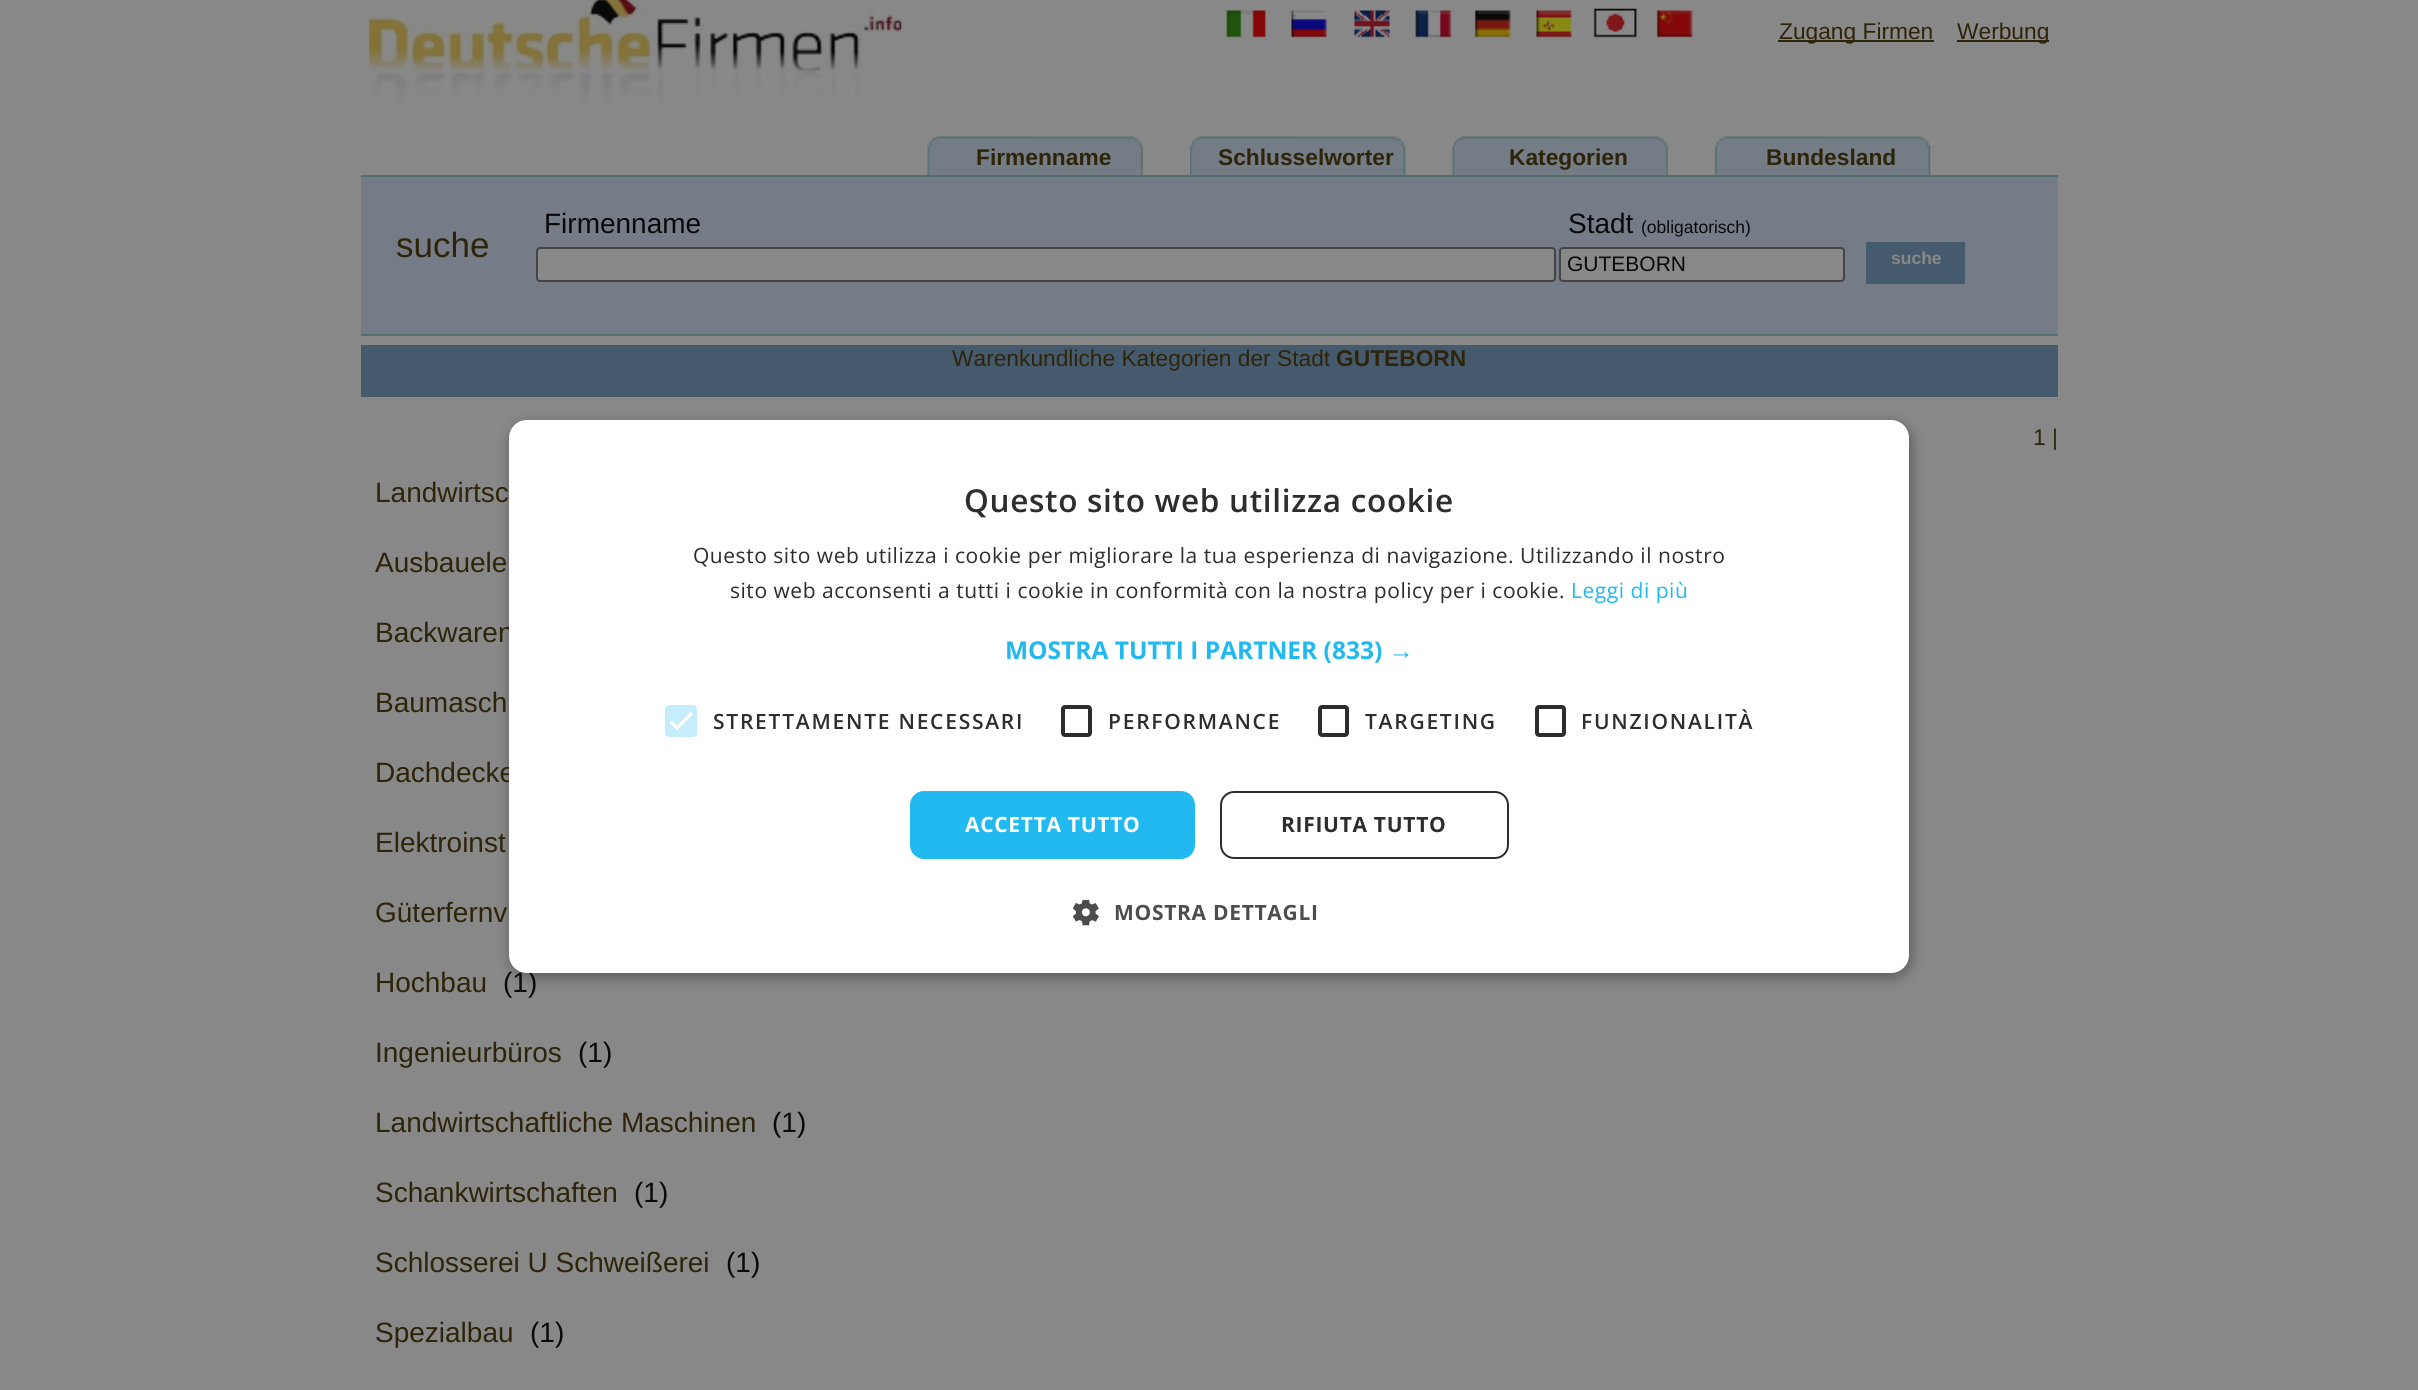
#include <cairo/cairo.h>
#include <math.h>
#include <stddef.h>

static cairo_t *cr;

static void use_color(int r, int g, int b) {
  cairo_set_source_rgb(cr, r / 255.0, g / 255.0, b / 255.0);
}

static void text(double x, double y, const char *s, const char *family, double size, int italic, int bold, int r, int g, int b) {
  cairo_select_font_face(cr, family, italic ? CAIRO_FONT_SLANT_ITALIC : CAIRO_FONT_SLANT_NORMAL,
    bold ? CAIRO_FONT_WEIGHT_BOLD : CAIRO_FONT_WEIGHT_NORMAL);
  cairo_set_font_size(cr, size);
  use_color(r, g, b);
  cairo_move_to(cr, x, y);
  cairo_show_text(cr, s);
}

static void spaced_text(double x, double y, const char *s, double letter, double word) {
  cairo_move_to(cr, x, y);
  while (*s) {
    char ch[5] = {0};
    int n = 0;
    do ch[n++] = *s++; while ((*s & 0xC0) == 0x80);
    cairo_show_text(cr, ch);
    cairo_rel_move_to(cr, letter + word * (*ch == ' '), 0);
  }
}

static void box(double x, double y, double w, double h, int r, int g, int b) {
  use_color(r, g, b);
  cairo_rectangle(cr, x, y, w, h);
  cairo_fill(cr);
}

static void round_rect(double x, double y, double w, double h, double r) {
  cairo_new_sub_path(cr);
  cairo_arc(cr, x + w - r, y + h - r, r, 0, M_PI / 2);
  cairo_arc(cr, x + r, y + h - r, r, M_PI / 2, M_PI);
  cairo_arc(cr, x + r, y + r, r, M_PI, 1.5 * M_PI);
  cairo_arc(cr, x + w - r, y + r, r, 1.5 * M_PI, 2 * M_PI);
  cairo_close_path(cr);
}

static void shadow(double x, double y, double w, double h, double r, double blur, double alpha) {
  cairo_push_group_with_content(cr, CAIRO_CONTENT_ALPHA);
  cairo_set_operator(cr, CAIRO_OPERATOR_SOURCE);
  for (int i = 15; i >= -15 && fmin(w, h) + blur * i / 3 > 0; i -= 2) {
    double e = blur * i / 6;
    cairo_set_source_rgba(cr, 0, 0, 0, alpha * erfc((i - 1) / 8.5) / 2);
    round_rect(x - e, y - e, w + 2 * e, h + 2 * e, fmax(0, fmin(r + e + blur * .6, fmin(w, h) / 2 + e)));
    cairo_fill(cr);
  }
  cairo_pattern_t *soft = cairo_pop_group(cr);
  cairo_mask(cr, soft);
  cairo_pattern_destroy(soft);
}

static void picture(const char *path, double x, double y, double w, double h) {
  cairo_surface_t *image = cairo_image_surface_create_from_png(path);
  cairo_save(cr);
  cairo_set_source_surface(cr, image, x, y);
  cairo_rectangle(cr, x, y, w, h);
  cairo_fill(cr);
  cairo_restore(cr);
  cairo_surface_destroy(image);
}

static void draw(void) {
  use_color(136, 136, 136);
  cairo_paint(cr);
  picture("img_01.png", 369, 0, 533, 104);
  picture("img_02.png", 1226, 8, 467, 30);
  box(1778, 40, 156, 2, 46, 36, 9);
  box(1957, 40, 92, 2, 46, 36, 9);
  picture("img_03.png", 927, 136, 216, 39);
  picture("img_04.png", 1190, 136, 216, 39);
  picture("img_03.png", 1452, 136, 216, 39);
  picture("img_04.png", 1715, 136, 216, 39);
  box(361, 177, 1697, 157, 117, 124, 135);
  box(361, 175, 1697, 2, 85, 111, 111);
  box(361, 334, 1697, 2, 85, 111, 111);
  box(1866, 242, 99, 42, 70, 90, 110);
  use_color(136, 136, 136);
  round_rect(537, 248, 1018, 33, 3);
  cairo_fill_preserve(cr);
  use_color(68, 68, 68);
  cairo_stroke(cr);
  use_color(136, 136, 136);
  round_rect(1560, 248, 284, 33, 3);
  cairo_fill_preserve(cr);
  use_color(68, 68, 68);
  cairo_stroke(cr);
  box(361, 345, 1697, 52, 70, 90, 110);
  use_color(0, 0, 0);
  shadow(511, 424, 1400, 553, 18, 7, 0.35);
  text(1779, 39, "Zugang Firmen", "Liberation Sans", 22.75, 0, 0, 46, 36, 9);
  text(1957, 39, "Werbung", "Liberation Sans", 22.75, 0, 0, 46, 36, 9);
  text(976, 165, "Firmenname", "Liberation Sans", 22.75, 0, 1, 46, 36, 9);
  text(1218, 165, "Schlusselworter", "Liberation Sans", 22.75, 0, 1, 46, 36, 9);
  text(1509, 165, "Kategorien", "Liberation Sans", 22.75, 0, 1, 46, 36, 9);
  text(1766, 165, "Bundesland", "Liberation Sans", 22.75, 0, 1, 46, 36, 9);
  text(396, 257, "suche", "Liberation Sans", 35, 0, 0, 46, 36, 9);
  text(544, 233, "Firmenname", "Liberation Sans", 28, 0, 0, 9, 9, 9);
  text(1568, 233, "Stadt", "Liberation Sans", 28, 0, 0, 9, 9, 9);
  text(1641, 233, "(obligatorisch)", "Liberation Sans", 17.5, 0, 0, 9, 9, 9);
  text(1891, 264, "suche", "Liberation Sans", 17.5, 0, 1, 136, 136, 136);
  text(1567, 271, "GUTEBORN", "Liberation Sans", 21, 0, 0, 9, 9, 9);
  text(952, 366, "Warenkundliche Kategorien der Stadt", "Liberation Sans", 22.75, 0, 0, 46, 36, 9);
  text(1336, 366, "GUTEBORN", "Liberation Sans", 22.75, 0, 1, 46, 36, 9);
  text(2033, 445, "1 |", "Liberation Sans", 22.75, 0, 0, 46, 36, 9);
  text(375, 502, "Landwirtsc", "Liberation Sans", 28, 0, 0, 46, 36, 9);
  text(375, 572, "Ausbauele", "Liberation Sans", 28, 0, 0, 46, 36, 9);
  text(375, 642, "Backwaren", "Liberation Sans", 28, 0, 0, 46, 36, 9);
  text(375, 712, "Baumasch", "Liberation Sans", 28, 0, 0, 46, 36, 9);
  text(375, 782, "Dachdecke", "Liberation Sans", 28, 0, 0, 46, 36, 9);
  text(375, 852, "Elektroinst", "Liberation Sans", 28, 0, 0, 46, 36, 9);
  text(375, 922, "Güterfernv", "Liberation Sans", 28, 0, 0, 46, 36, 9);
  text(375, 992, "Hochbau", "Liberation Sans", 28, 0, 0, 46, 36, 9);
  text(503, 992, "(1)", "Liberation Sans", 28, 0, 0, 9, 9, 9);
  text(375, 1062, "Ingenieurbüros", "Liberation Sans", 28, 0, 0, 46, 36, 9);
  text(578, 1062, "(1)", "Liberation Sans", 28, 0, 0, 9, 9, 9);
  text(375, 1132, "Landwirtschaftliche Maschinen", "Liberation Sans", 28, 0, 0, 46, 36, 9);
  text(772, 1132, "(1)", "Liberation Sans", 28, 0, 0, 9, 9, 9);
  text(375, 1202, "Schankwirtschaften", "Liberation Sans", 28, 0, 0, 46, 36, 9);
  text(634, 1202, "(1)", "Liberation Sans", 28, 0, 0, 9, 9, 9);
  text(375, 1272, "Schlosserei U Schweißerei", "Liberation Sans", 28, 0, 0, 46, 36, 9);
  text(726, 1272, "(1)", "Liberation Sans", 28, 0, 0, 9, 9, 9);
  text(375, 1342, "Spezialbau", "Liberation Sans", 28, 0, 0, 46, 36, 9);
  text(530, 1342, "(1)", "Liberation Sans", 28, 0, 0, 9, 9, 9);
  use_color(255, 255, 255);
  round_rect(509, 420, 1400, 553, 18);
  cairo_fill(cr);
  cairo_select_font_face(cr, "Open Sans SemiBold", CAIRO_FONT_SLANT_NORMAL, CAIRO_FONT_WEIGHT_NORMAL);
  cairo_set_font_size(cr, 31.5);
  use_color(45, 45, 45);
  spaced_text(964, 512, "Questo sito web utilizza cookie", 0.7, 0);
  cairo_select_font_face(cr, "Open Sans", CAIRO_FONT_SLANT_NORMAL, CAIRO_FONT_WEIGHT_NORMAL);
  cairo_set_font_size(cr, 21);
  spaced_text(693, 563, "Questo sito web utilizza i cookie per migliorare la tua esperienza di navigazione. Utilizzando il nostro", 0.53, 0);
  spaced_text(730, 598, "sito web acconsenti a tutti i cookie in conformità con la nostra policy per i cookie.", 0.53, 0);
  use_color(34, 184, 240);
  spaced_text(1571, 598, "Leggi di più", 0.53, 0);
  text(1005, 659, "MOSTRA TUTTI I PARTNER (833)", "Open Sans", 24.5, 0, 1, 34, 184, 240);
  text(1389, 659, "→", "Liberation Sans", 24.5, 0, 1, 34, 184, 240);
  use_color(198, 237, 251);
  round_rect(665, 705, 32, 32, 4);
  cairo_fill(cr);
  cairo_new_path(cr);
  cairo_move_to(cr, 670.5, 721.5);
  cairo_line_to(cr, 677, 728);
  cairo_line_to(cr, 692, 713);
  use_color(255, 255, 255);
  cairo_set_line_width(cr, 3.2);
  cairo_stroke(cr);
  cairo_select_font_face(cr, "Open Sans SemiBold", CAIRO_FONT_SLANT_NORMAL, CAIRO_FONT_WEIGHT_NORMAL);
  cairo_set_font_size(cr, 21);
  use_color(45, 45, 45);
  spaced_text(713, 729, "STRETTAMENTE NECESSARI", 1.75, 0);
  round_rect(1063, 707, 27, 28, 2);
  cairo_set_line_width(cr, 4);
  cairo_stroke(cr);
  spaced_text(1108, 729, "PERFORMANCE", 1.75, 0);
  round_rect(1320, 707, 27, 28, 2);
  cairo_stroke(cr);
  spaced_text(1365, 729, "TARGETING", 1.75, 0);
  round_rect(1537, 707, 27, 28, 2);
  cairo_stroke(cr);
  spaced_text(1581, 729, "FUNZIONALITÀ", 1.75, 0);
  use_color(34, 184, 240);
  round_rect(910, 791, 285, 68, 14);
  cairo_fill(cr);
  cairo_select_font_face(cr, "Open Sans", CAIRO_FONT_SLANT_NORMAL, CAIRO_FONT_WEIGHT_BOLD);
  use_color(255, 255, 255);
  spaced_text(965, 832, "ACCETTA TUTTO", 0.7, 0);
  round_rect(1221, 792, 287, 66, 13);
  use_color(45, 45, 45);
  cairo_set_line_width(cr, 2);
  cairo_stroke(cr);
  spaced_text(1281, 832, "RIFIUTA TUTTO", 0.7, 0);
  picture("img_05.png", 1073, 900, 26, 26);
  use_color(77, 77, 77);
  spaced_text(1114, 920, "MOSTRA DETTAGLI", 0.7, 0);
}

int main(void) {
  cairo_surface_t *surface = cairo_image_surface_create(CAIRO_FORMAT_RGB24, 2418, 1390);
  cr = cairo_create(surface);
  cairo_font_options_t *options = cairo_font_options_create();
  cairo_font_options_set_hint_metrics(options, CAIRO_HINT_METRICS_OFF);
  cairo_font_options_set_hint_style(options, CAIRO_HINT_STYLE_NONE);
  cairo_set_font_options(cr, options);
  cairo_set_miter_limit(cr, 4);
  draw();
  cairo_surface_write_to_png(surface, "out.png");
  cairo_font_options_destroy(options);
  cairo_destroy(cr);
  cairo_surface_destroy(surface);
  return 0;
}
